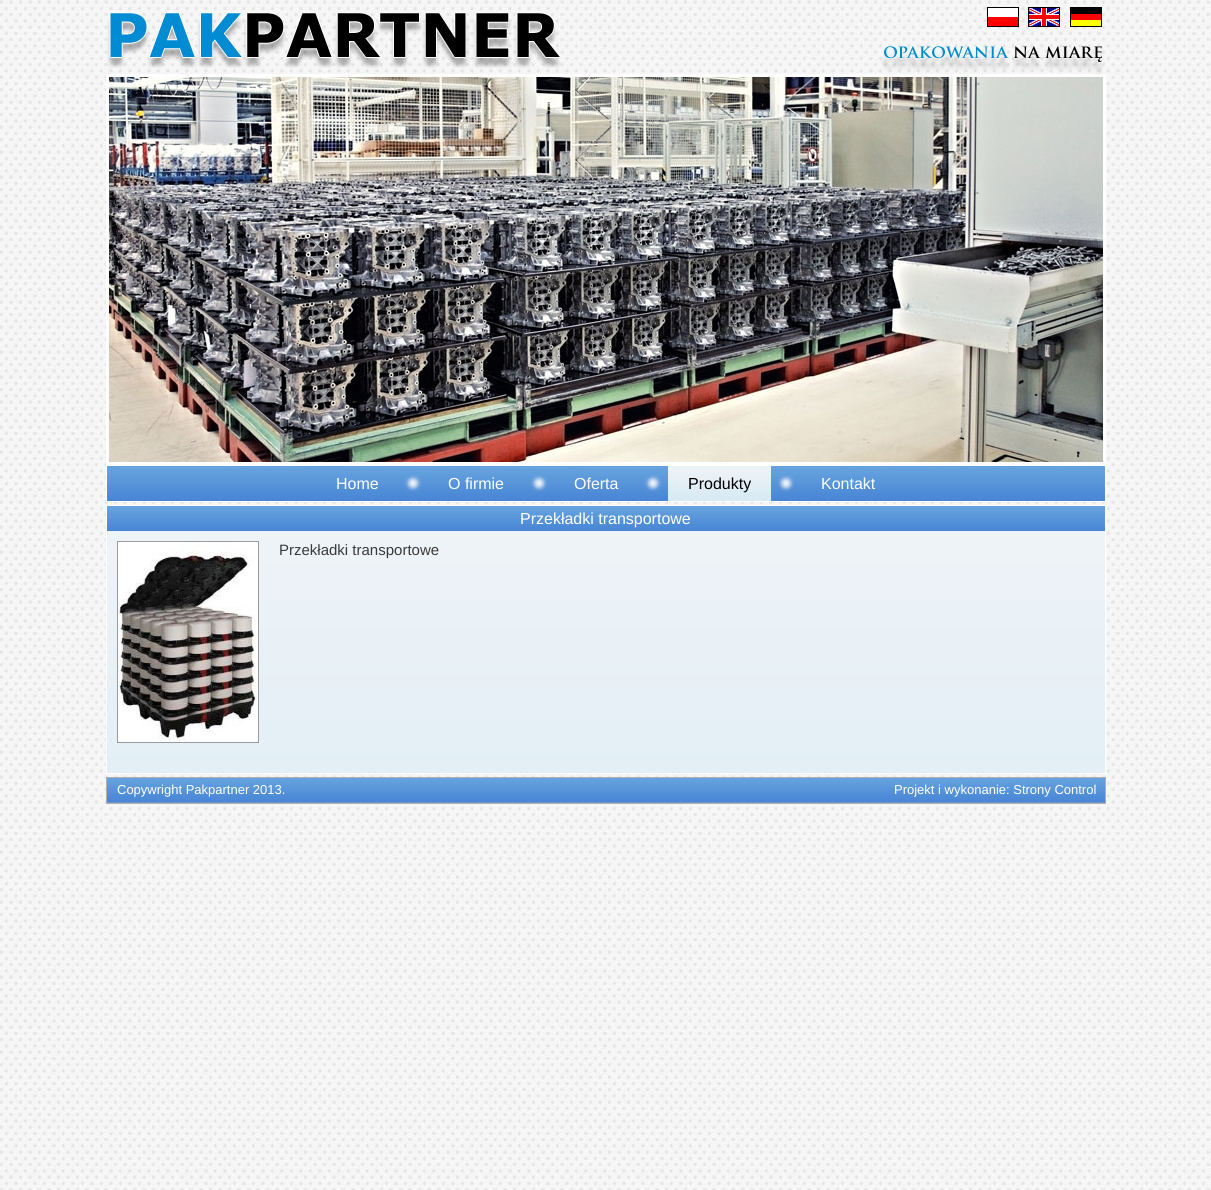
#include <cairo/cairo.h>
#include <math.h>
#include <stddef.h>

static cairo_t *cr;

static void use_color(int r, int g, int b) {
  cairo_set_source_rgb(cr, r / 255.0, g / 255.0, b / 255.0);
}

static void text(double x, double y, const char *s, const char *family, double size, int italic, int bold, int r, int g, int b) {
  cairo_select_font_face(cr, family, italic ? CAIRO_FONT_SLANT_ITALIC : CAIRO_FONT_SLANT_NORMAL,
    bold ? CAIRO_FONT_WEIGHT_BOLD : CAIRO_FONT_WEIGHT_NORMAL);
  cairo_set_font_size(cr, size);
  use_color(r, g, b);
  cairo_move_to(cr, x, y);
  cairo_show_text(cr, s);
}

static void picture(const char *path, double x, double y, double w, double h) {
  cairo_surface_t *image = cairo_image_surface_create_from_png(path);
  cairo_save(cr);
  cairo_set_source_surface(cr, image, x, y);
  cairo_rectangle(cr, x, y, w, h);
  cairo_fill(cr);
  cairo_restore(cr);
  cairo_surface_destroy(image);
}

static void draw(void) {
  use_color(255, 255, 255);
  cairo_paint(cr);
  picture("img_01.png", 0, 0, 1211, 1190);
  picture("img_02.png", 107, 12, 454, 56);
  picture("img_03.png", 987, 7, 32, 20);
  picture("img_04.png", 1028, 7, 32, 20);
  picture("img_05.png", 1070, 7, 32, 20);
  picture("img_06.png", 881, 45, 222, 29);
  picture("img_07.png", 106, 74, 1000, 391);
  cairo_rectangle(cr, 106.5, 465.5, 999, 36);
  use_color(255, 255, 255);
  cairo_set_line_width(cr, 1);
  cairo_stroke(cr);
  picture("img_08.png", 107, 466, 998, 35);
  picture("img_09.png", 404, 475, 18, 17);
  picture("img_09.png", 530, 475, 18, 17);
  picture("img_09.png", 644, 475, 18, 17);
  picture("img_10.png", 668, 466, 103, 35);
  picture("img_09.png", 777, 475, 18, 17);
  cairo_rectangle(cr, 106.5, 505.5, 999, 268);
  cairo_stroke(cr);
  picture("img_11.png", 107, 506, 998, 25);
  picture("img_12.png", 107, 531, 998, 242);
  cairo_rectangle(cr, 117.5, 541.5, 141, 201);
  use_color(155, 155, 155);
  cairo_stroke(cr);
  picture("img_13.png", 118, 542, 140, 200);
  picture("img_14.png", 107, 778, 998, 25);
  cairo_rectangle(cr, 106.5, 777.5, 999, 26);
  use_color(176, 175, 175);
  cairo_stroke(cr);
  text(336, 489, "Home", "Liberation Sans", 16, 0, 0, 255, 255, 255);
  text(448, 489, "O firmie", "Liberation Sans", 16, 0, 0, 255, 255, 255);
  text(574, 489, "Oferta", "Liberation Sans", 16, 0, 0, 255, 255, 255);
  text(688, 489, "Produkty", "Liberation Sans", 16, 0, 0, 0, 0, 0);
  text(821, 489, "Kontakt", "Liberation Sans", 16, 0, 0, 255, 255, 255);
  text(520, 524, "Przekładki transportowe", "Liberation Sans", 16, 0, 0, 255, 255, 255);
  text(279, 555, "Przekładki transportowe", "Liberation Sans", 15, 0, 0, 59, 58, 58);
  text(117, 794, "Copywright Pakpartner 2013.", "Liberation Sans", 13, 0, 0, 255, 255, 255);
  text(894, 794, "Projekt i wykonanie: Strony Control", "Liberation Sans", 13, 0, 0, 255, 255, 255);
}

int main(void) {
  cairo_surface_t *surface = cairo_image_surface_create(CAIRO_FORMAT_RGB24, 1211, 1190);
  cr = cairo_create(surface);
  cairo_font_options_t *options = cairo_font_options_create();
  cairo_font_options_set_hint_metrics(options, CAIRO_HINT_METRICS_OFF);
  cairo_font_options_set_hint_style(options, CAIRO_HINT_STYLE_NONE);
  cairo_set_font_options(cr, options);
  cairo_set_miter_limit(cr, 4);
  draw();
  cairo_surface_write_to_png(surface, "out.png");
  cairo_font_options_destroy(options);
  cairo_destroy(cr);
  cairo_surface_destroy(surface);
  return 0;
}
